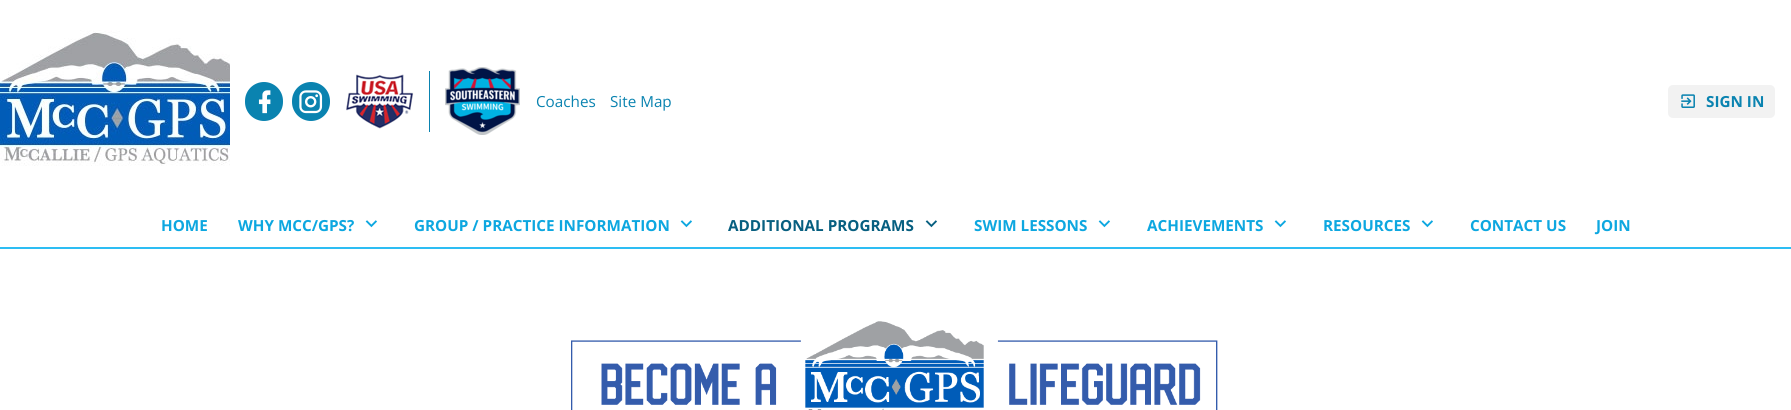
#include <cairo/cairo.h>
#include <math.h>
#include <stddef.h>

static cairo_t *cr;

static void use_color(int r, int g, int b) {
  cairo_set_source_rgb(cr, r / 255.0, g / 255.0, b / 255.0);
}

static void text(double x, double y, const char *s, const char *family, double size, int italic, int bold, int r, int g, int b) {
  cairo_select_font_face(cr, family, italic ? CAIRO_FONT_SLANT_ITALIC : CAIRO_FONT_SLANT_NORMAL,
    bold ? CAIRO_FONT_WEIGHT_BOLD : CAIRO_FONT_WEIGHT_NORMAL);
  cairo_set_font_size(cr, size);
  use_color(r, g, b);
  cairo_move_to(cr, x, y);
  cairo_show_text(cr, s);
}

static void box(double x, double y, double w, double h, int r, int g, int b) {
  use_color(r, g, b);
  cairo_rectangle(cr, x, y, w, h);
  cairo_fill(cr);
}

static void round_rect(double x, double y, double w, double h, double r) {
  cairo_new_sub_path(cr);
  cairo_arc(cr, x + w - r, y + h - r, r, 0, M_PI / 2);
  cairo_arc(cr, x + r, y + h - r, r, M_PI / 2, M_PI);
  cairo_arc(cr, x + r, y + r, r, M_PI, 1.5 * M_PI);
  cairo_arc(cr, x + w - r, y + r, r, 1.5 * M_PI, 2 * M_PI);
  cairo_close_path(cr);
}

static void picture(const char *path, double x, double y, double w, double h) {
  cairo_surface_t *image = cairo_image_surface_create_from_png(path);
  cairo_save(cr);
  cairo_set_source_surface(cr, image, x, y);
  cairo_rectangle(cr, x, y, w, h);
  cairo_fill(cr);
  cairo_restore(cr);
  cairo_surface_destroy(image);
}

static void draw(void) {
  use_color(255, 255, 255);
  cairo_paint(cr);
  picture("img_01.png", 0, 30, 230, 136);
  use_color(10, 131, 176);
  round_rect(245, 82, 38, 39, 19);
  cairo_fill(cr);
  picture("img_02.png", 258, 90, 13, 24);
  round_rect(292, 82, 38, 39, 19);
  cairo_fill(cr);
  picture("img_03.png", 299, 90, 24, 24);
  picture("img_04.png", 346, 74, 68, 55);
  box(429, 71, 1, 61, 10, 131, 176);
  picture("img_05.png", 445, 67, 75, 68);
  use_color(242, 242, 242);
  round_rect(1668, 85, 107, 33, 5);
  cairo_fill(cr);
  picture("img_06.png", 1681, 94, 14, 14);
  box(0, 247, 1791, 2, 45, 189, 243);
  picture("img_07.png", 365, 220, 12, 8);
  picture("img_07.png", 680, 220, 12, 8);
  picture("img_08.png", 925, 220, 12, 8);
  picture("img_07.png", 1098, 220, 12, 8);
  picture("img_07.png", 1274, 220, 12, 8);
  picture("img_07.png", 1421, 220, 12, 8);
  picture("img_09.png", 571, 321, 647, 89);
  text(536, 107, "Coaches", "Open Sans", 15.25, 0, 0, 10, 131, 176);
  text(610, 107, "Site Map", "Open Sans", 15.25, 0, 0, 10, 131, 176);
  text(1706, 107, "SIGN IN", "Open Sans", 15.25, 0, 1, 10, 131, 176);
  text(161, 231, "HOME", "Open Sans", 15.25, 0, 1, 13, 167, 224);
  text(238, 231, "WHY MCC/GPS?", "Open Sans", 15.25, 0, 1, 13, 167, 224);
  text(414, 231, "GROUP / PRACTICE INFORMATION", "Open Sans", 15.25, 0, 1, 13, 167, 224);
  text(728, 231, "ADDITIONAL PROGRAMS", "Open Sans", 15.25, 0, 1, 7, 95, 128);
  text(974, 231, "SWIM LESSONS", "Open Sans", 15.25, 0, 1, 13, 167, 224);
  text(1147, 231, "ACHIEVEMENTS", "Open Sans", 15.25, 0, 1, 13, 167, 224);
  text(1323, 231, "RESOURCES", "Open Sans", 15.25, 0, 1, 13, 167, 224);
  text(1470, 231, "CONTACT US", "Open Sans", 15.25, 0, 1, 13, 167, 224);
  text(1596, 231, "JOIN", "Open Sans", 15.25, 0, 1, 13, 167, 224);
}

int main(void) {
  cairo_surface_t *surface = cairo_image_surface_create(CAIRO_FORMAT_RGB24, 1791, 410);
  cr = cairo_create(surface);
  cairo_font_options_t *options = cairo_font_options_create();
  cairo_font_options_set_hint_metrics(options, CAIRO_HINT_METRICS_OFF);
  cairo_font_options_set_hint_style(options, CAIRO_HINT_STYLE_NONE);
  cairo_set_font_options(cr, options);
  cairo_set_miter_limit(cr, 4);
  draw();
  cairo_surface_write_to_png(surface, "out.png");
  cairo_font_options_destroy(options);
  cairo_destroy(cr);
  cairo_surface_destroy(surface);
  return 0;
}
